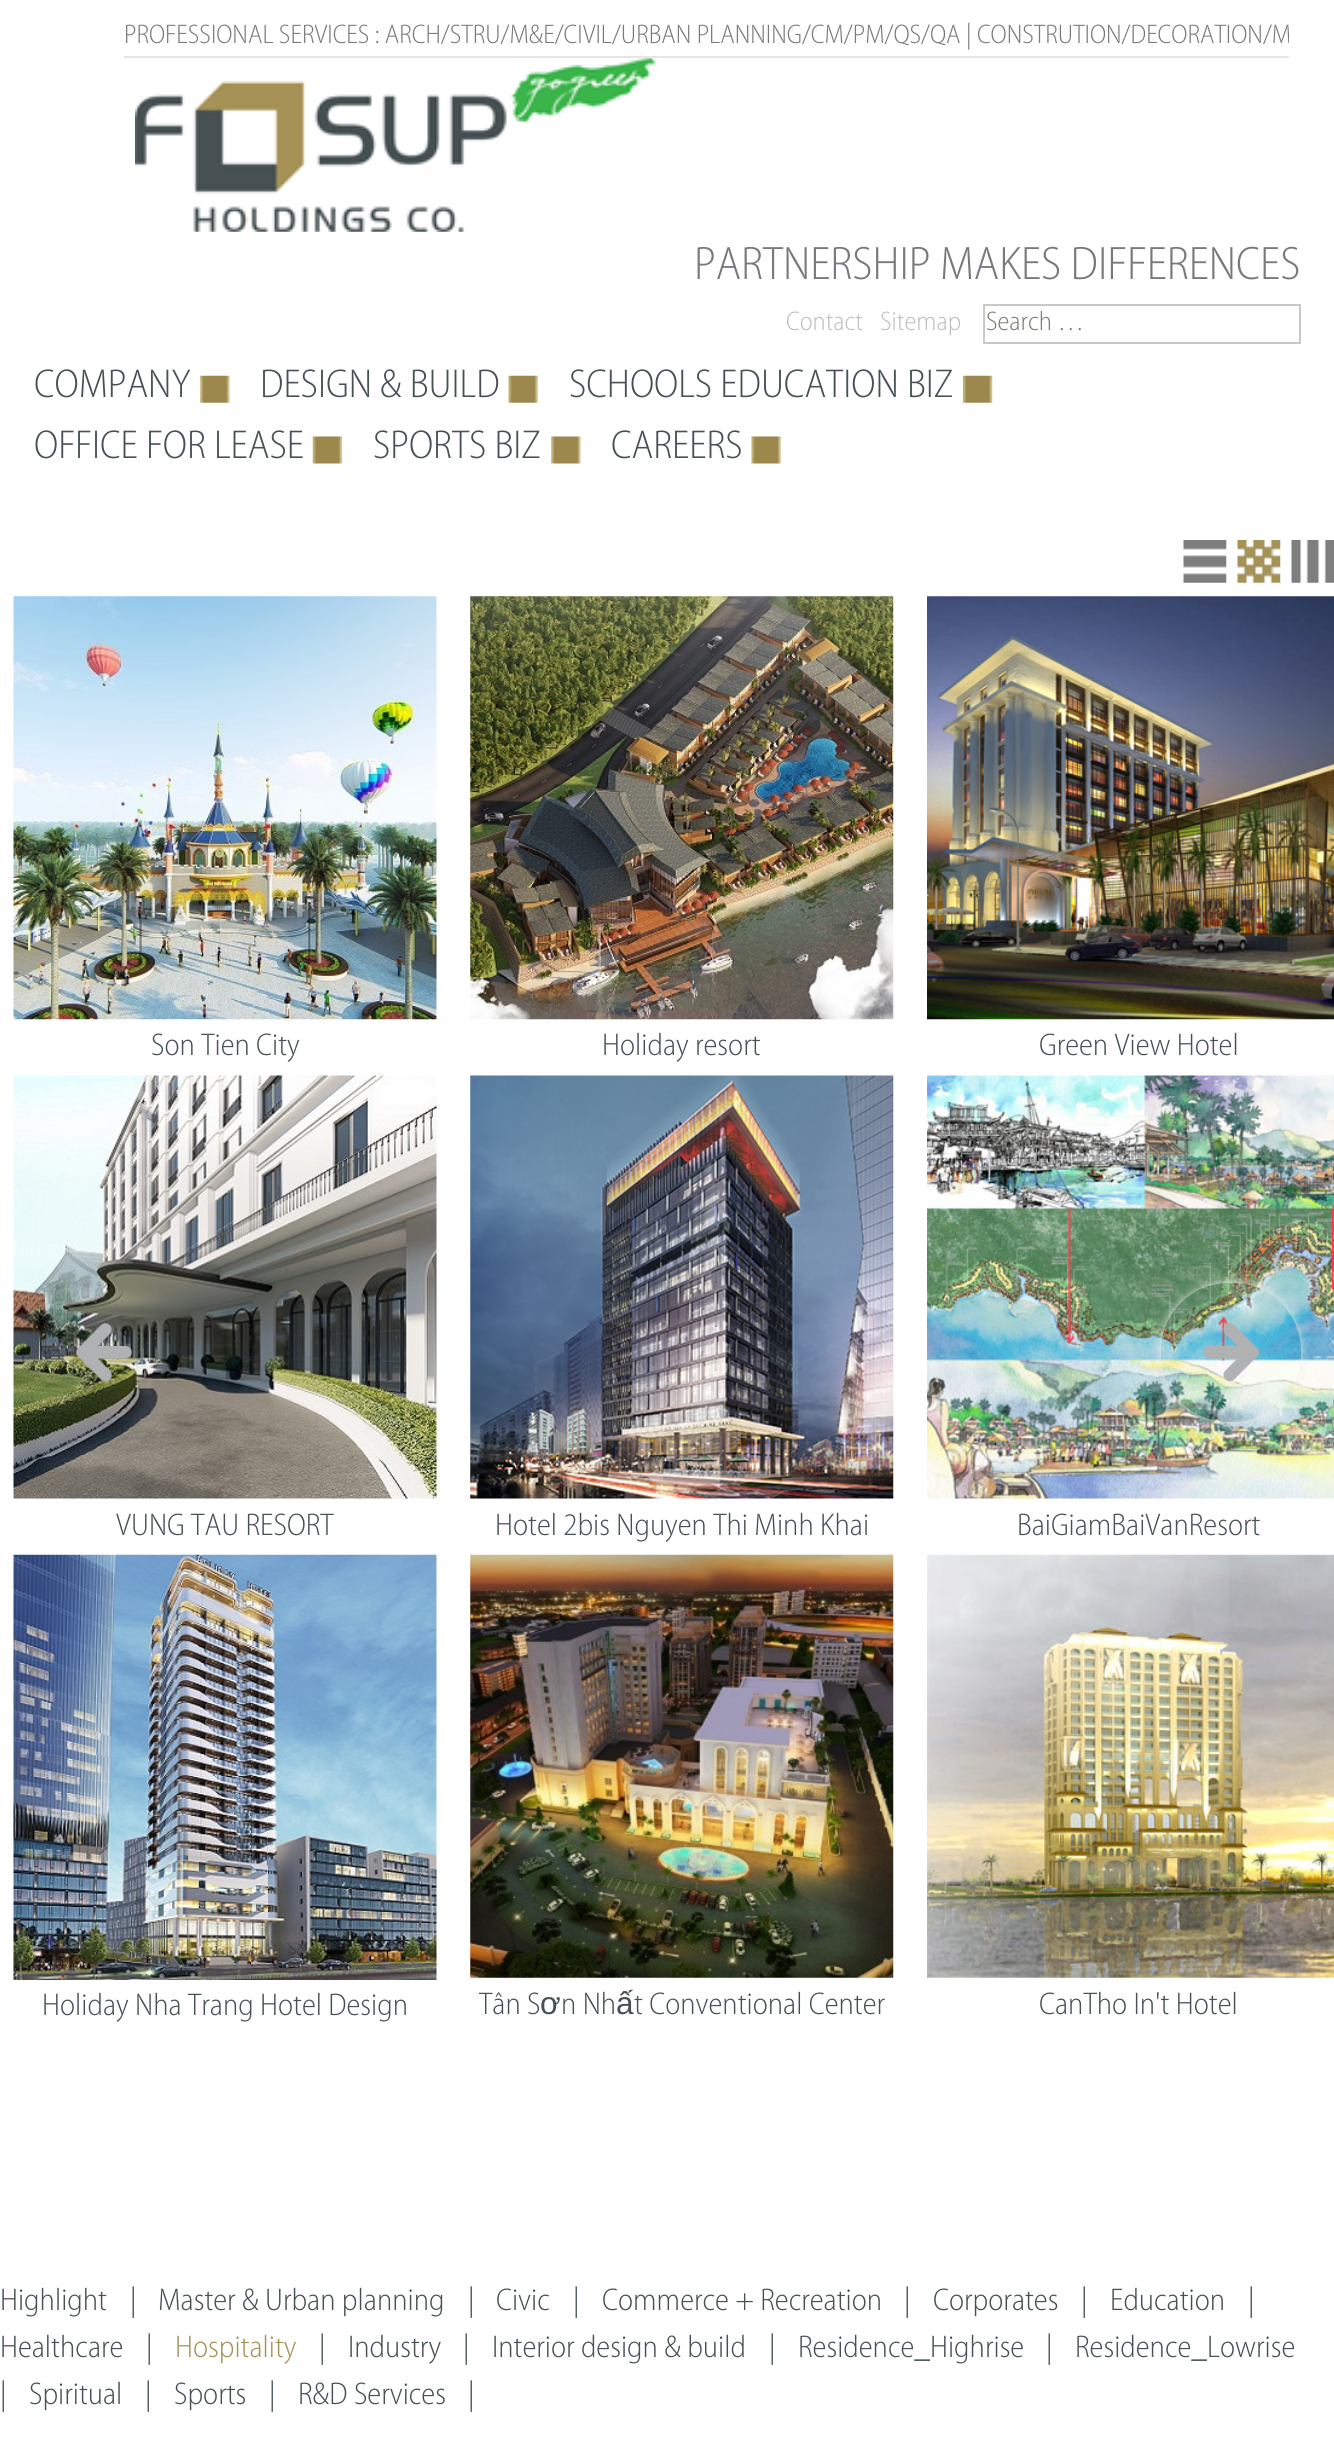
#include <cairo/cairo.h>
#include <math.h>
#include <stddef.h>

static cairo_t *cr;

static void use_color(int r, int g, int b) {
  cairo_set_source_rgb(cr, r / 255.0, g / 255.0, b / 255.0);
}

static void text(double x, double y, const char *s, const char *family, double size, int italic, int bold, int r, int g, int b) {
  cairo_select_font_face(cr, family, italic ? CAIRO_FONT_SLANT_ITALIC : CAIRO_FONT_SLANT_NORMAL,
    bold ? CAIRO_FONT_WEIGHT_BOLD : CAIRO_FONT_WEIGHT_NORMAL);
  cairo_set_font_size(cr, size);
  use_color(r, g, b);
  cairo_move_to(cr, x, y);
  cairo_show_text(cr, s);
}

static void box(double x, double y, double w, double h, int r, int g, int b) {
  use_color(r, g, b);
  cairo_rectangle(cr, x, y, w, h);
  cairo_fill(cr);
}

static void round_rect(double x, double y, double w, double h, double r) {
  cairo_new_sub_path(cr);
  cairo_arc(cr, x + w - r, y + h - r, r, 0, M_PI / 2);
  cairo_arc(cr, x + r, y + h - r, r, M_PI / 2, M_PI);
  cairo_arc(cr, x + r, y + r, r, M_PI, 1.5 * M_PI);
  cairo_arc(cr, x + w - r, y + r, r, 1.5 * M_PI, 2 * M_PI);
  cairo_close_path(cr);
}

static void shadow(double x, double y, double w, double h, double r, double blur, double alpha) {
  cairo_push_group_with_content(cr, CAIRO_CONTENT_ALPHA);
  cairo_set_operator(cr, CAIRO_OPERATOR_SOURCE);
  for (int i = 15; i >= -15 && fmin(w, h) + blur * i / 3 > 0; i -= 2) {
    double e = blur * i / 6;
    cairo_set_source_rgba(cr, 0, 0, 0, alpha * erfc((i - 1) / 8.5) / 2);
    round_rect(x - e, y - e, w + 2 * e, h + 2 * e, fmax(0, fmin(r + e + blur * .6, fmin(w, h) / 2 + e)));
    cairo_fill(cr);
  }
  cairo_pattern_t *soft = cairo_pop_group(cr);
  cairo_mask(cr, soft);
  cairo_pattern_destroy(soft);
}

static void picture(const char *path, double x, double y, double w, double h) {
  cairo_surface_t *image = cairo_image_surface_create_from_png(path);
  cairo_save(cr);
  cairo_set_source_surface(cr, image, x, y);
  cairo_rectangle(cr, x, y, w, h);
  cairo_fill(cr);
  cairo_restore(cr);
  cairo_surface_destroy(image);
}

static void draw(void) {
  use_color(255, 255, 255);
  cairo_paint(cr);
  box(124, 56, 1165, 2, 229, 229, 229);
  picture("img_01.png", 135, 58, 521, 174);
  cairo_rectangle(cr, 984, 305, 316, 38);
  use_color(200, 200, 200);
  cairo_stroke(cr);
  picture("img_02.png", 200, 375, 30, 28);
  picture("img_03.png", 508, 375, 30, 28);
  picture("img_04.png", 963, 375, 30, 28);
  picture("img_05.png", 312, 436, 30, 28);
  picture("img_06.png", 551, 436, 30, 28);
  picture("img_07.png", 751, 436, 30, 28);
  picture("img_08.png", 1183, 540, 44, 43);
  picture("img_09.png", 1237, 540, 44, 43);
  picture("img_10.png", 1291, 540, 43, 43);
  picture("img_11.png", 13, 596, 424, 424);
  picture("img_12.png", 13, 1075, 424, 424);
  picture("img_13.png", 13, 1554, 424, 426);
  picture("img_14.png", 470, 596, 424, 424);
  picture("img_15.png", 470, 1075, 424, 424);
  picture("img_16.png", 470, 1554, 424, 424);
  picture("img_17.png", 927, 596, 407, 424);
  picture("img_18.png", 927, 1075, 407, 424);
  picture("img_19.png", 927, 1554, 407, 424);
  picture("img_20.png", 76, 1323, 56, 59);
  cairo_save(cr);
  cairo_set_fill_rule(cr, CAIRO_FILL_RULE_EVEN_ODD);
  cairo_new_path(cr);
  cairo_move_to(cr, 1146, 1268);
  cairo_line_to(cr, 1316, 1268);
  cairo_line_to(cr, 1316, 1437);
  cairo_line_to(cr, 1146, 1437);
  cairo_close_path(cr);
  cairo_move_to(cr, 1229, 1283);
  cairo_line_to(cr, 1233, 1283);
  cairo_curve_to(cr, 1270.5, 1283, 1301, 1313.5, 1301, 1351);
  cairo_line_to(cr, 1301, 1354);
  cairo_curve_to(cr, 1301, 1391.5, 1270.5, 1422, 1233, 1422);
  cairo_line_to(cr, 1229, 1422);
  cairo_curve_to(cr, 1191.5, 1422, 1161, 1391.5, 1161, 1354);
  cairo_line_to(cr, 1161, 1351);
  cairo_curve_to(cr, 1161, 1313.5, 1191.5, 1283, 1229, 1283);
  cairo_close_path(cr);
  cairo_clip(cr);
  use_color(240, 239, 231);
  shadow(1161, 1283, 140, 139, 68, 4.5, 1);
  cairo_restore(cr);
  picture("img_21.png", 1203, 1323, 56, 59);
  cairo_save(cr);
  cairo_rectangle(cr, 124, 16, 1165, 40);
  cairo_clip(cr);
  text(124, 43, "PROFESSIONAL SERVICES : ARCH/STRU/M&E/CIVIL/URBAN PLANNING/CM/PM/QS/QA | CONSTRUTION/DECORATION/M", "Myriad Light", 27, 0, 0, 120, 121, 124);
  cairo_restore(cr);
  text(694, 279, "PARTNERSHIP MAKES DIFFERENCES", "Myriad Light", 47.25, 0, 0, 120, 121, 124);
  text(786, 330, "Contact", "Myriad Light", 27, 0, 0, 188, 190, 192);
  text(880, 330, "Sitemap", "Myriad Light", 27, 0, 0, 188, 190, 192);
  text(986, 330, "Search …", "Myriad Light", 27, 0, 0, 125, 123, 109);
  text(34, 397, "COMPANY", "Myriad Light", 40.5, 0, 0, 71, 81, 83);
  text(260, 397, "DESIGN & BUILD", "Myriad Light", 40.5, 0, 0, 71, 81, 83);
  text(569, 397, "SCHOOLS EDUCATION BIZ", "Myriad Light", 40.5, 0, 0, 71, 81, 83);
  text(34, 458, "OFFICE FOR LEASE", "Myriad Light", 40.5, 0, 0, 71, 81, 83);
  text(373, 458, "SPORTS BIZ", "Myriad Light", 40.5, 0, 0, 71, 81, 83);
  text(611, 458, "CAREERS", "Myriad Light", 40.5, 0, 0, 71, 81, 83);
  text(151, 1055, "Son Tien City", "Myriad Light", 31.5, 0, 0, 71, 81, 83);
  text(116, 1535, "VUNG TAU RESORT", "Myriad Light", 31.5, 0, 0, 71, 81, 83);
  text(42, 2015, "Holiday Nha Trang Hotel Design", "Myriad Light", 31.5, 0, 0, 71, 81, 83);
  text(602, 1055, "Holiday resort", "Myriad Light", 31.5, 0, 0, 71, 81, 83);
  text(495, 1535, "Hotel 2bis Nguyen Thi Minh Khai", "Myriad Light", 31.5, 0, 0, 71, 81, 83);
  text(479, 2014, "Tân S", "Myriad Light", 31.5, 0, 0, 71, 81, 83);
  text(540, 2014, "ơ", "Liberation Sans", 31.5, 0, 0, 71, 81, 83);
  text(561, 2014, "n Nh", "Myriad Light", 31.5, 0, 0, 71, 81, 83);
  text(616, 2014, "ấ", "Liberation Sans", 31.5, 0, 0, 71, 81, 83);
  text(634, 2014, "t Conventional Center", "Myriad Light", 31.5, 0, 0, 71, 81, 83);
  text(1039, 1055, "Green View Hotel", "Myriad Light", 31.5, 0, 0, 71, 81, 83);
  text(1017, 1535, "BaiGiamBaiVanResort", "Myriad Light", 31.5, 0, 0, 71, 81, 83);
  text(1039, 2014, "CanTho In't Hotel", "Myriad Light", 31.5, 0, 0, 71, 81, 83);
  text(0, 2310, "Highlight", "Myriad Light", 31.5, 0, 0, 71, 81, 83);
  text(130, 2310, "|", "Myriad Light", 31.5, 0, 0, 71, 81, 83);
  text(158, 2310, "Master & Urban planning", "Myriad Light", 31.5, 0, 0, 71, 81, 83);
  text(468, 2310, "|", "Myriad Light", 31.5, 0, 0, 71, 81, 83);
  text(496, 2310, "Civic", "Myriad Light", 31.5, 0, 0, 71, 81, 83);
  text(573, 2310, "|", "Myriad Light", 31.5, 0, 0, 71, 81, 83);
  text(602, 2310, "Commerce + Recreation", "Myriad Light", 31.5, 0, 0, 71, 81, 83);
  text(904, 2310, "|", "Myriad Light", 31.5, 0, 0, 71, 81, 83);
  text(933, 2310, "Corporates", "Myriad Light", 31.5, 0, 0, 71, 81, 83);
  text(1081, 2310, "|", "Myriad Light", 31.5, 0, 0, 71, 81, 83);
  text(1110, 2310, "Education", "Myriad Light", 31.5, 0, 0, 71, 81, 83);
  text(1248, 2310, "|", "Myriad Light", 31.5, 0, 0, 71, 81, 83);
  text(0, 2357, "Healthcare", "Myriad Light", 31.5, 0, 0, 71, 81, 83);
  text(146, 2357, "|", "Myriad Light", 31.5, 0, 0, 71, 81, 83);
  text(175, 2357, "Hospitality", "Myriad Light", 31.5, 0, 0, 166, 146, 86);
  text(319, 2357, "|", "Myriad Light", 31.5, 0, 0, 71, 81, 83);
  text(348, 2357, "Industry", "Myriad Light", 31.5, 0, 0, 71, 81, 83);
  text(463, 2357, "|", "Myriad Light", 31.5, 0, 0, 71, 81, 83);
  text(492, 2357, "Interior design & build", "Myriad Light", 31.5, 0, 0, 71, 81, 83);
  text(769, 2357, "|", "Myriad Light", 31.5, 0, 0, 71, 81, 83);
  text(798, 2357, "Residence_Highrise", "Myriad Light", 31.5, 0, 0, 71, 81, 83);
  text(1046, 2357, "|", "Myriad Light", 31.5, 0, 0, 71, 81, 83);
  text(1075, 2357, "Residence_Lowrise", "Myriad Light", 31.5, 0, 0, 71, 81, 83);
  text(0, 2404, "|", "Myriad Light", 31.5, 0, 0, 71, 81, 83);
  text(29, 2404, "Spiritual", "Myriad Light", 31.5, 0, 0, 71, 81, 83);
  text(145, 2404, "|", "Myriad Light", 31.5, 0, 0, 71, 81, 83);
  text(174, 2404, "Sports", "Myriad Light", 31.5, 0, 0, 71, 81, 83);
  text(269, 2404, "|", "Myriad Light", 31.5, 0, 0, 71, 81, 83);
  text(298, 2404, "R&D Services", "Myriad Light", 31.5, 0, 0, 71, 81, 83);
  text(468, 2404, "|", "Myriad Light", 31.5, 0, 0, 71, 81, 83);
}

int main(void) {
  cairo_surface_t *surface = cairo_image_surface_create(CAIRO_FORMAT_RGB24, 1334, 2457);
  cr = cairo_create(surface);
  cairo_font_options_t *options = cairo_font_options_create();
  cairo_font_options_set_hint_metrics(options, CAIRO_HINT_METRICS_OFF);
  cairo_font_options_set_hint_style(options, CAIRO_HINT_STYLE_NONE);
  cairo_set_font_options(cr, options);
  cairo_set_miter_limit(cr, 4);
  draw();
  cairo_surface_write_to_png(surface, "out.png");
  cairo_font_options_destroy(options);
  cairo_destroy(cr);
  cairo_surface_destroy(surface);
  return 0;
}
